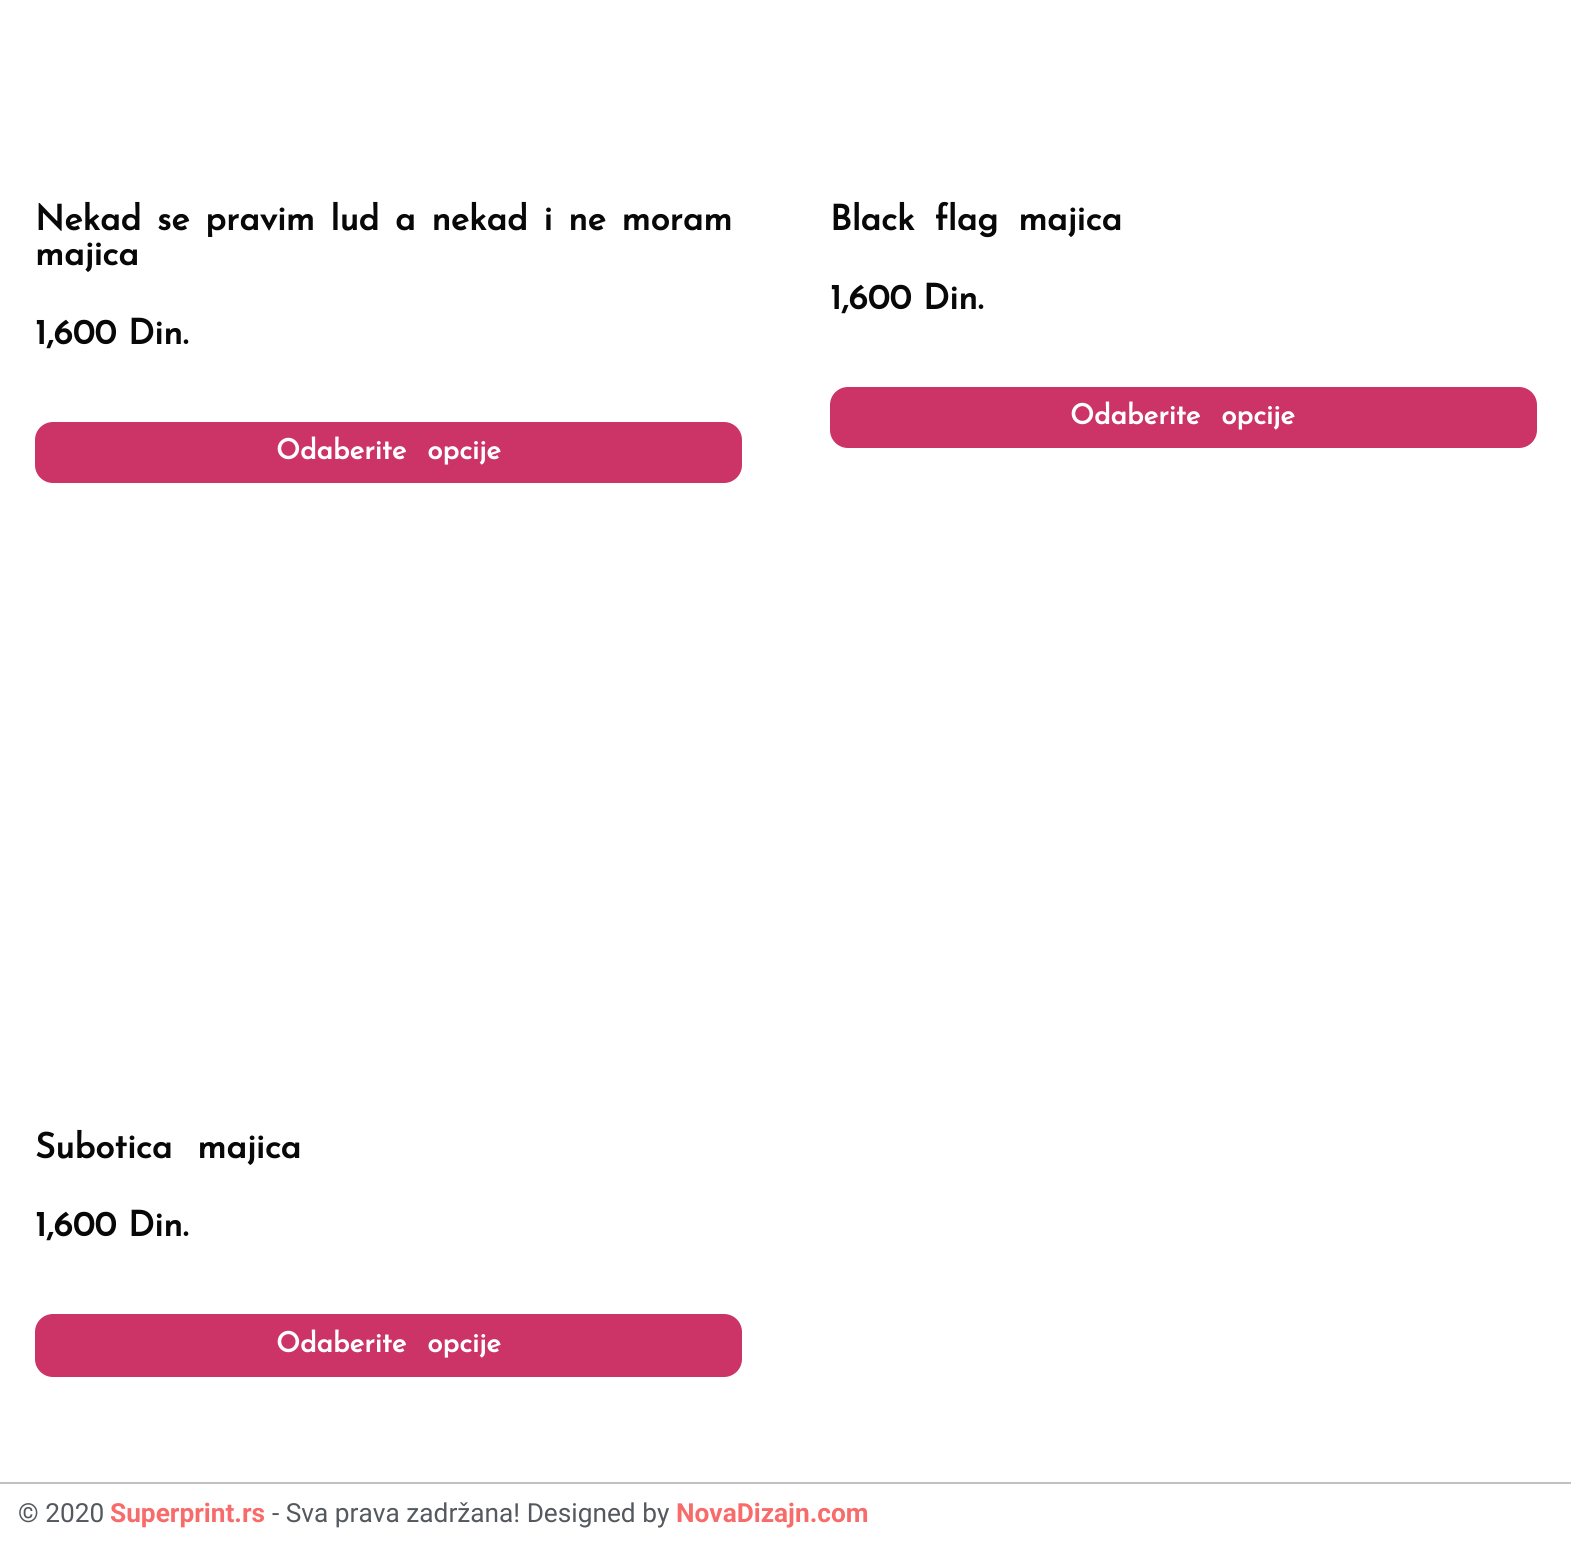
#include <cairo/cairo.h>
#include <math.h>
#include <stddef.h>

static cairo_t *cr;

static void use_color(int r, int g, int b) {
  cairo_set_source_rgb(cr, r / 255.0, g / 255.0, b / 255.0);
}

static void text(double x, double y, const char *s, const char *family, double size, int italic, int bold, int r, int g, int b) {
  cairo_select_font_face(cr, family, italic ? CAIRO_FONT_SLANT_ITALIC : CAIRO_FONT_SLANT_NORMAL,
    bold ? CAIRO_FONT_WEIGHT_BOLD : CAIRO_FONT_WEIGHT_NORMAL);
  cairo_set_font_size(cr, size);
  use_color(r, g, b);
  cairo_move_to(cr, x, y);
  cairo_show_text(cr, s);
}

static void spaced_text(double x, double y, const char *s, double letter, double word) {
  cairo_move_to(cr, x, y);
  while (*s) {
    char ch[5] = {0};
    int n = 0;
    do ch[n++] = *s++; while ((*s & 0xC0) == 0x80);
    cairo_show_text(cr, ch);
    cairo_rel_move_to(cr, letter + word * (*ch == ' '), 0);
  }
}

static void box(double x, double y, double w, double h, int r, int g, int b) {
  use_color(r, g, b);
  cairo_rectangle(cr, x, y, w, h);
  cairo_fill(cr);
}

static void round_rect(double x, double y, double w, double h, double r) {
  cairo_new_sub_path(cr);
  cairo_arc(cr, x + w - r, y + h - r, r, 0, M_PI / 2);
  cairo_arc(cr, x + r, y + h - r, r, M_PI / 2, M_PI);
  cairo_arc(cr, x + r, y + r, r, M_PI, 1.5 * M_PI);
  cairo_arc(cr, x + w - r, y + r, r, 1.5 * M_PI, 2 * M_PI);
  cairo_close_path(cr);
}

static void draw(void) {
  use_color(255, 255, 255);
  cairo_paint(cr);
  use_color(204, 51, 102);
  round_rect(35, 422, 707, 61, 18);
  cairo_fill(cr);
  round_rect(830, 387, 707, 61, 18);
  cairo_fill(cr);
  round_rect(35, 1314, 707, 63, 18);
  cairo_fill(cr);
  box(0, 1482, 1571, 2, 192, 192, 192);
  cairo_select_font_face(cr, "Josefin Sans", CAIRO_FONT_SLANT_NORMAL, CAIRO_FONT_WEIGHT_BOLD);
  cairo_set_font_size(cr, 35);
  use_color(8, 8, 8);
  spaced_text(35, 230, "Nekad se pravim lud a nekad i ne moram", 0, 4.75);
  text(35, 265, "majica", "Josefin Sans", 35, 0, 1, 8, 8, 8);
  text(35, 344, "1,600", "Josefin Sans", 35, 0, 1, 8, 8, 8);
  text(128, 344, "Din.", "Josefin Sans", 35, 0, 1, 8, 8, 8);
  cairo_set_font_size(cr, 28);
  use_color(255, 255, 255);
  spaced_text(276, 459, "Odaberite opcije", 0, 12);
  cairo_set_font_size(cr, 35);
  use_color(8, 8, 8);
  spaced_text(830, 230, "Black flag majica", 0, 9);
  text(830, 309, "1,600", "Josefin Sans", 35, 0, 1, 8, 8, 8);
  text(923, 309, "Din.", "Josefin Sans", 35, 0, 1, 8, 8, 8);
  cairo_set_font_size(cr, 28);
  use_color(255, 255, 255);
  spaced_text(1070, 424, "Odaberite opcije", 0, 12);
  cairo_set_font_size(cr, 35);
  use_color(8, 8, 8);
  spaced_text(35, 1158, "Subotica majica", 0, 14);
  text(35, 1236, "1,600", "Josefin Sans", 35, 0, 1, 8, 8, 8);
  text(128, 1236, "Din.", "Josefin Sans", 35, 0, 1, 8, 8, 8);
  cairo_set_font_size(cr, 28);
  use_color(255, 255, 255);
  spaced_text(276, 1352, "Odaberite opcije", 0, 12);
  text(18, 1522, "© 2020", "Roboto", 26.25, 0, 0, 84, 89, 95);
  text(110, 1522, "Superprint.rs", "Roboto", 26.25, 0, 1, 247, 107, 106);
  text(272, 1522, "- Sva prava zadržana! Designed by", "Roboto", 26.25, 0, 0, 84, 89, 95);
  text(676, 1522, "NovaDizajn.com", "Roboto", 26.25, 0, 1, 247, 107, 106);
}

int main(void) {
  cairo_surface_t *surface = cairo_image_surface_create(CAIRO_FORMAT_RGB24, 1571, 1545);
  cr = cairo_create(surface);
  cairo_font_options_t *options = cairo_font_options_create();
  cairo_font_options_set_hint_metrics(options, CAIRO_HINT_METRICS_OFF);
  cairo_font_options_set_hint_style(options, CAIRO_HINT_STYLE_NONE);
  cairo_set_font_options(cr, options);
  cairo_set_miter_limit(cr, 4);
  draw();
  cairo_surface_write_to_png(surface, "out.png");
  cairo_font_options_destroy(options);
  cairo_destroy(cr);
  cairo_surface_destroy(surface);
  return 0;
}
